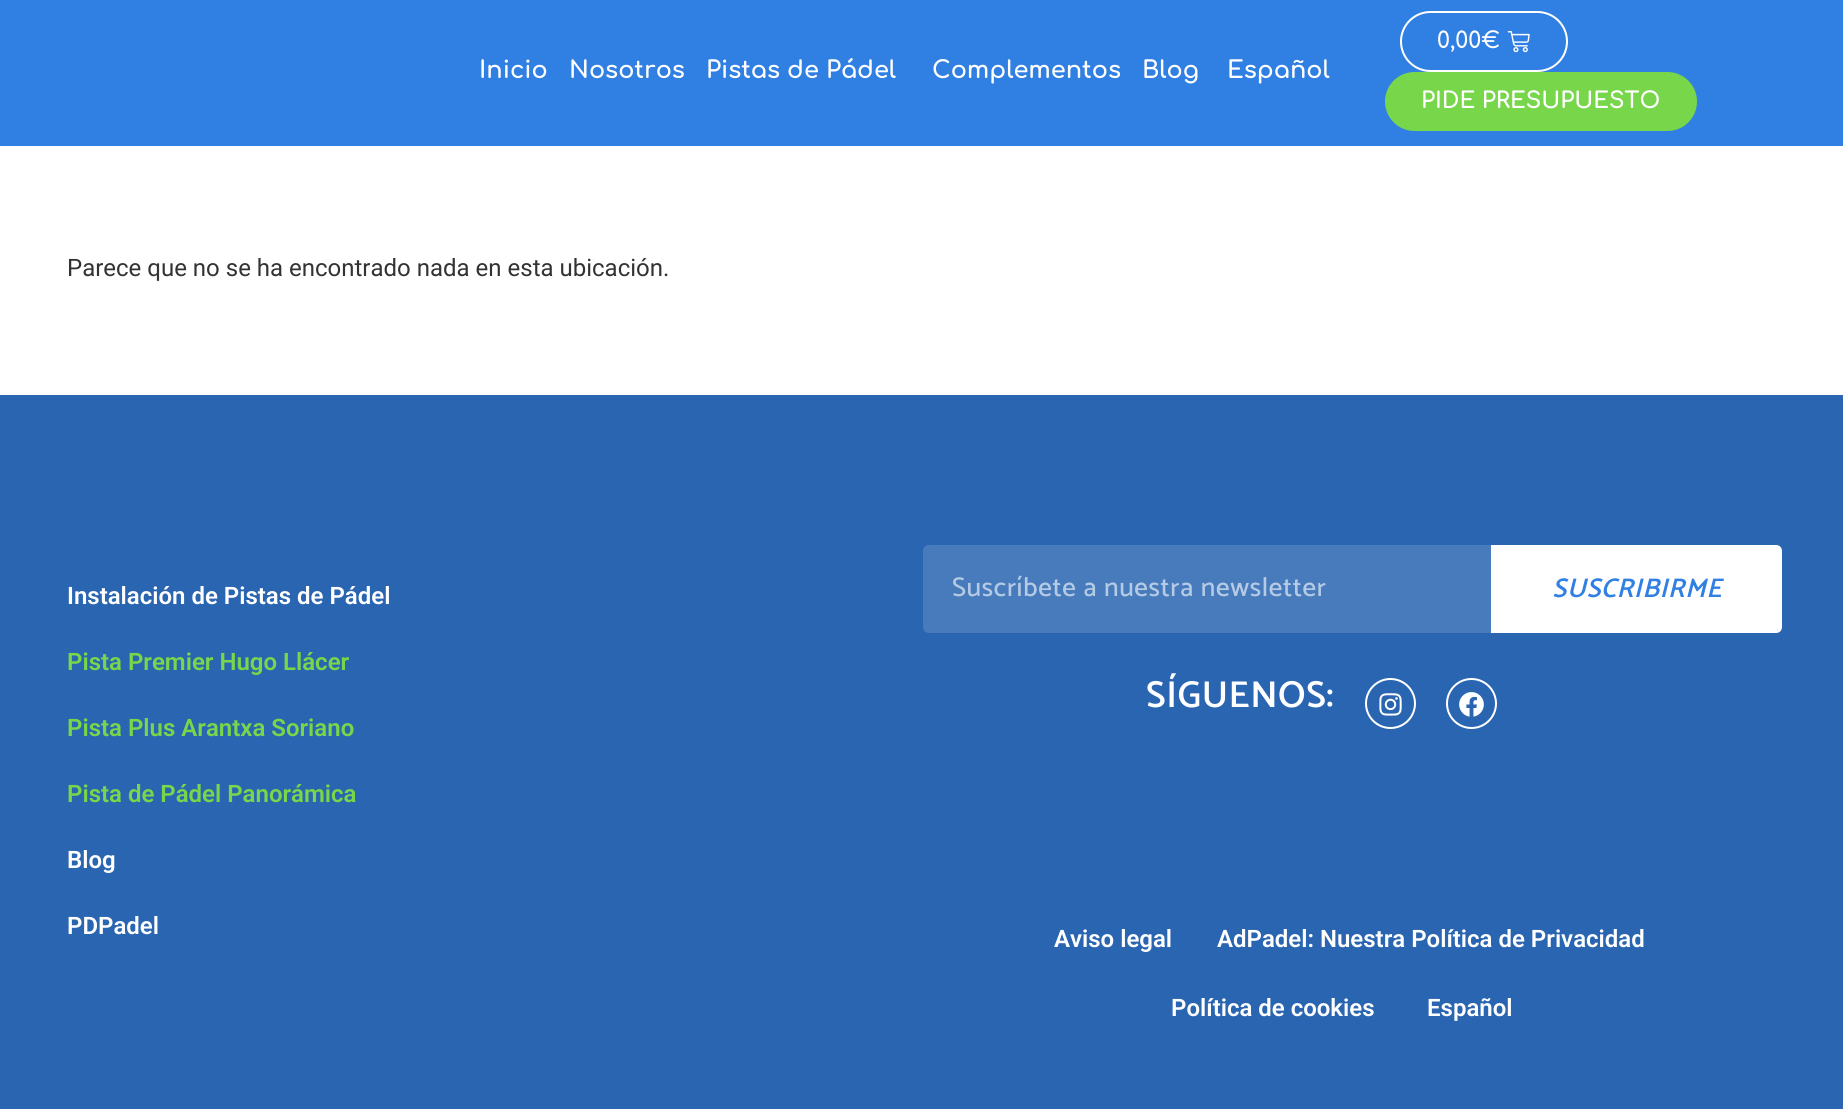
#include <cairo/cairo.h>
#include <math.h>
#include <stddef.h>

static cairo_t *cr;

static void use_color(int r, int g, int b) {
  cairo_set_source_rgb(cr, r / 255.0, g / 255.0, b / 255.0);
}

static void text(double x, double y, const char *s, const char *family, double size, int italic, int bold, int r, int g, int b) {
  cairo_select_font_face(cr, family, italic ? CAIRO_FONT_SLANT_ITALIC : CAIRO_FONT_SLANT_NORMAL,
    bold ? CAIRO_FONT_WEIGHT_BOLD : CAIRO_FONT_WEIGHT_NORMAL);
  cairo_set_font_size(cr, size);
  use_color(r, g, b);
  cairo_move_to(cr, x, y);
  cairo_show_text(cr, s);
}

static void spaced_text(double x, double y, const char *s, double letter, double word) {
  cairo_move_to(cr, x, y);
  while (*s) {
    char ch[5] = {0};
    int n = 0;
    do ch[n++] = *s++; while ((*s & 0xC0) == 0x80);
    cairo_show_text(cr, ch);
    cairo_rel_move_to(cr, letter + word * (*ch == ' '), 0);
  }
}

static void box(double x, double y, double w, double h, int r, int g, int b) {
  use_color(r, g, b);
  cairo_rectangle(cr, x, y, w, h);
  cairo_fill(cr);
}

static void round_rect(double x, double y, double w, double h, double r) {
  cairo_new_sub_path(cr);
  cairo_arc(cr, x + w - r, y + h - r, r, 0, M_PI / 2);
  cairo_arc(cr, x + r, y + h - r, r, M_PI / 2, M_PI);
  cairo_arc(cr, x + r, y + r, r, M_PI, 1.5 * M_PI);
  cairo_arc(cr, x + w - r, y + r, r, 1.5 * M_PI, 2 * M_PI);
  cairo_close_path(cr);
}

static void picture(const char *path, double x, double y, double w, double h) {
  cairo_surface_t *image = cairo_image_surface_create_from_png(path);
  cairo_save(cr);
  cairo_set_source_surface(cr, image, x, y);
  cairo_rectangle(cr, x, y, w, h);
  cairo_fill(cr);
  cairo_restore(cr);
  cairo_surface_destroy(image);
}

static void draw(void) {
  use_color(255, 255, 255);
  cairo_paint(cr);
  box(0, 0, 1843, 146, 48, 127, 226);
  round_rect(1401, 12, 166, 59, 29.5);
  use_color(255, 255, 255);
  cairo_stroke(cr);
  picture("img_01.png", 1507, 31, 23, 22);
  use_color(120, 214, 75);
  round_rect(1385, 72, 312, 59, 29.5);
  cairo_fill(cr);
  box(0, 395, 1843, 714, 41, 101, 177);
  use_color(71, 123, 188);
  cairo_new_path(cr);
  cairo_move_to(cr, 929, 545);
  cairo_line_to(cr, 1491, 545);
  cairo_line_to(cr, 1491, 633);
  cairo_line_to(cr, 929, 633);
  cairo_curve_to(cr, 925.5, 633, 923, 630.5, 923, 627);
  cairo_line_to(cr, 923, 551);
  cairo_curve_to(cr, 923, 547.5, 925.5, 545, 929, 545);
  cairo_close_path(cr);
  cairo_fill(cr);
  use_color(255, 255, 255);
  cairo_new_path(cr);
  cairo_move_to(cr, 1491, 545);
  cairo_line_to(cr, 1776, 545);
  cairo_curve_to(cr, 1779.5, 545, 1782, 547.5, 1782, 551);
  cairo_line_to(cr, 1782, 627);
  cairo_curve_to(cr, 1782, 630.5, 1779.5, 633, 1776, 633);
  cairo_line_to(cr, 1491, 633);
  cairo_close_path(cr);
  cairo_fill(cr);
  cairo_arc(cr, 1390.5, 703.5, 24.5, 0, 2 * M_PI);
  cairo_stroke(cr);
  picture("img_02.png", 1379, 693, 23, 23);
  cairo_arc(cr, 1471.5, 703.5, 24.5, 0, 2 * M_PI);
  cairo_stroke(cr);
  picture("img_03.png", 1459, 692, 25, 25);
  text(479, 78, "Inicio", "Comfortaa", 24, 0, 1, 255, 255, 255);
  text(569, 78, "Nosotros", "Comfortaa", 24, 0, 1, 255, 255, 255);
  text(706, 78, "Pistas de Pádel", "Comfortaa", 24, 0, 1, 255, 255, 255);
  text(932, 78, "Complementos", "Comfortaa", 24, 0, 1, 255, 255, 255);
  text(1142, 78, "Blog", "Comfortaa", 24, 0, 1, 255, 255, 255);
  text(1227, 78, "Español", "Comfortaa", 24, 0, 1, 255, 255, 255);
  text(1437, 48, "0,00€", "Comfortaa SemiBold", 22.5, 0, 0, 255, 255, 255);
  text(1421, 108, "PIDE PRESUPUESTO", "Comfortaa", 22.5, 0, 1, 255, 255, 255);
  text(67, 276, "Parece que no se ha encontrado nada en esta ubicación.", "Roboto", 24, 0, 0, 51, 51, 51);
  text(67, 604, "Instalación de Pistas de Pádel", "Roboto SemiBold", 24, 0, 0, 255, 255, 255);
  text(67, 670, "Pista Premier Hugo Llácer", "Roboto SemiBold", 24, 0, 0, 120, 214, 75);
  text(67, 736, "Pista Plus Arantxa Soriano", "Roboto SemiBold", 24, 0, 0, 120, 214, 75);
  text(67, 802, "Pista de Pádel Panorámica", "Roboto SemiBold", 24, 0, 0, 120, 214, 75);
  text(67, 868, "Blog", "Roboto SemiBold", 24, 0, 0, 255, 255, 255);
  text(67, 934, "PDPadel", "Roboto SemiBold", 24, 0, 0, 255, 255, 255);
  cairo_select_font_face(cr, "Catamaran Medium", CAIRO_FONT_SLANT_NORMAL, CAIRO_FONT_WEIGHT_NORMAL);
  cairo_set_font_size(cr, 27);
  use_color(181, 202, 228);
  spaced_text(952, 596, "Suscríbete a nuestra newsletter", 0.6, 0);
  cairo_select_font_face(cr, "Catamaran SemiBold", CAIRO_FONT_SLANT_ITALIC, CAIRO_FONT_WEIGHT_NORMAL);
  use_color(48, 127, 226);
  spaced_text(1552, 597, "SUSCRIBIRME", 0.6, 0);
  cairo_select_font_face(cr, "Catamaran SemiBold", CAIRO_FONT_SLANT_NORMAL, CAIRO_FONT_WEIGHT_NORMAL);
  cairo_set_font_size(cr, 37.5);
  use_color(255, 255, 255);
  spaced_text(1146, 707, "SÍGUENOS:", 0.6, 0);
  text(1054, 947, "Aviso legal", "Roboto SemiBold", 24, 0, 0, 255, 255, 255);
  text(1217, 947, "AdPadel: Nuestra Política de Privacidad", "Roboto SemiBold", 24, 0, 0, 255, 255, 255);
  text(1171, 1016, "Política de cookies", "Roboto SemiBold", 24, 0, 0, 255, 255, 255);
  text(1427, 1016, "Español", "Roboto SemiBold", 24, 0, 0, 255, 255, 255);
}

int main(void) {
  cairo_surface_t *surface = cairo_image_surface_create(CAIRO_FORMAT_RGB24, 1843, 1109);
  cr = cairo_create(surface);
  cairo_font_options_t *options = cairo_font_options_create();
  cairo_font_options_set_hint_metrics(options, CAIRO_HINT_METRICS_OFF);
  cairo_font_options_set_hint_style(options, CAIRO_HINT_STYLE_NONE);
  cairo_set_font_options(cr, options);
  cairo_set_miter_limit(cr, 4);
  draw();
  cairo_surface_write_to_png(surface, "out.png");
  cairo_font_options_destroy(options);
  cairo_destroy(cr);
  cairo_surface_destroy(surface);
  return 0;
}
